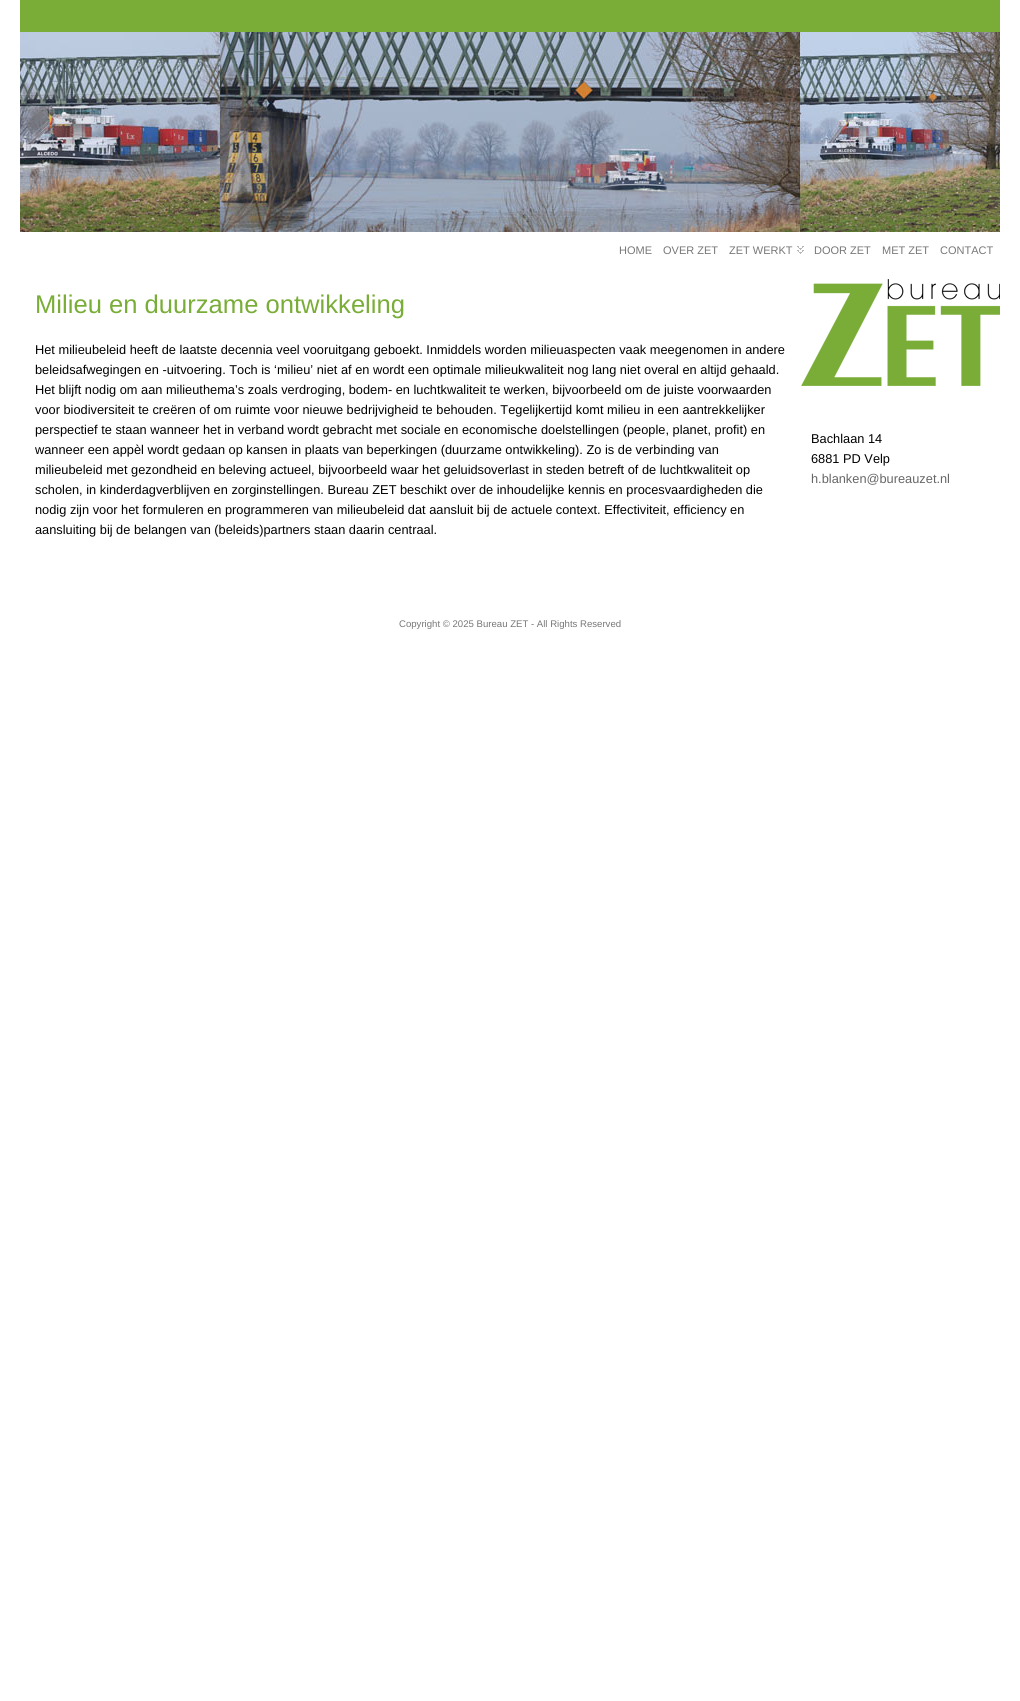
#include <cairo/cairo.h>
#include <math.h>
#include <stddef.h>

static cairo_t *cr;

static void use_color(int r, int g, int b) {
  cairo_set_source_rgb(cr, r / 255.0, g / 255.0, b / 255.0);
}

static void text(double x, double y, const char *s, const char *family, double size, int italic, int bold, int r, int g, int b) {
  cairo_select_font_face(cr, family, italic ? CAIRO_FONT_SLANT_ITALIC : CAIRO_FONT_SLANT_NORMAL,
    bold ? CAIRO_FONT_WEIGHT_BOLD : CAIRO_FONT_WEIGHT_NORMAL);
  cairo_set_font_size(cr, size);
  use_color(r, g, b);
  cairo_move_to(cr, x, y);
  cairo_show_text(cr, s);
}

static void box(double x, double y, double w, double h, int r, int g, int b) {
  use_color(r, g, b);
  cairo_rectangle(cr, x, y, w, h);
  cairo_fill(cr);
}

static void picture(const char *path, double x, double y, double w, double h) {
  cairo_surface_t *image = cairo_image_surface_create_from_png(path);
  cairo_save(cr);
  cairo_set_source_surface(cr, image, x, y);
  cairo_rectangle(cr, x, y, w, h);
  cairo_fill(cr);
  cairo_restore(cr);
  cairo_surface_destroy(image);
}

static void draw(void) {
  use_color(255, 255, 255);
  cairo_paint(cr);
  box(20, 0, 980, 32, 121, 173, 55);
  picture("img_01.png", 20, 32, 980, 200);
  picture("img_02.png", 797, 246, 7, 8);
  picture("img_03.png", 801, 279, 199, 107);
  text(619, 254, "HOME", "Liberation Sans", 11, 0, 0, 119, 119, 119);
  text(663, 254, "OVER ZET", "Liberation Sans", 11, 0, 0, 119, 119, 119);
  text(729, 254, "ZET WERKT", "Liberation Sans", 11, 0, 0, 119, 119, 119);
  text(814, 254, "DOOR ZET", "Liberation Sans", 11, 0, 0, 119, 119, 119);
  text(882, 254, "MET ZET", "Liberation Sans", 11, 0, 0, 119, 119, 119);
  text(940, 254, "CONTACT", "Liberation Sans", 11, 0, 0, 119, 119, 119);
  text(35, 313, "Milieu en duurzame ontwikkeling", "Liberation Sans", 25.6, 0, 0, 121, 173, 55);
  text(35, 354, "Het milieubeleid heeft de laatste decennia veel vooruitgang geboekt. Inmiddels worden milieuaspecten vaak meegenomen in andere", "Liberation Sans", 12.8, 0, 0, 0, 0, 0);
  text(35, 374, "beleidsafwegingen en -uitvoering. Toch is ‘milieu’ niet af en wordt een optimale milieukwaliteit nog lang niet overal en altijd gehaald.", "Liberation Sans", 12.8, 0, 0, 0, 0, 0);
  text(35, 394, "Het blijft nodig om aan milieuthema’s zoals verdroging, bodem- en luchtkwaliteit te werken, bijvoorbeeld om de juiste voorwaarden", "Liberation Sans", 12.8, 0, 0, 0, 0, 0);
  text(35, 414, "voor biodiversiteit te creëren of om ruimte voor nieuwe bedrijvigheid te behouden. Tegelijkertijd komt milieu in een aantrekkelijker", "Liberation Sans", 12.8, 0, 0, 0, 0, 0);
  text(35, 434, "perspectief te staan wanneer het in verband wordt gebracht met sociale en economische doelstellingen (people, planet, profit) en", "Liberation Sans", 12.8, 0, 0, 0, 0, 0);
  text(35, 454, "wanneer een appèl wordt gedaan op kansen in plaats van beperkingen (duurzame ontwikkeling). Zo is de verbinding van", "Liberation Sans", 12.8, 0, 0, 0, 0, 0);
  text(35, 474, "milieubeleid met gezondheid en beleving actueel, bijvoorbeeld waar het geluidsoverlast in steden betreft of de luchtkwaliteit op", "Liberation Sans", 12.8, 0, 0, 0, 0, 0);
  text(35, 494, "scholen, in kinderdagverblijven en zorginstellingen. Bureau ZET beschikt over de inhoudelijke kennis en procesvaardigheden die", "Liberation Sans", 12.8, 0, 0, 0, 0, 0);
  text(35, 514, "nodig zijn voor het formuleren en programmeren van milieubeleid dat aansluit bij de actuele context. Effectiviteit, efficiency en", "Liberation Sans", 12.8, 0, 0, 0, 0, 0);
  text(35, 534, "aansluiting bij de belangen van (beleids)partners staan daarin centraal.", "Liberation Sans", 12.8, 0, 0, 0, 0, 0);
  text(811, 443, "Bachlaan 14", "Liberation Sans", 12.8, 0, 0, 0, 0, 0);
  text(811, 463, "6881 PD Velp", "Liberation Sans", 12.8, 0, 0, 0, 0, 0);
  text(811, 483, "h.blanken@bureauzet.nl", "Liberation Sans", 12.8, 0, 0, 102, 102, 102);
  text(399, 627, "Copyright © 2025 Bureau ZET - All Rights Reserved", "Liberation Sans", 9.6, 0, 0, 119, 119, 119);
}

int main(void) {
  cairo_surface_t *surface = cairo_image_surface_create(CAIRO_FORMAT_RGB24, 1020, 1701);
  cr = cairo_create(surface);
  cairo_font_options_t *options = cairo_font_options_create();
  cairo_font_options_set_hint_metrics(options, CAIRO_HINT_METRICS_OFF);
  cairo_font_options_set_hint_style(options, CAIRO_HINT_STYLE_NONE);
  cairo_set_font_options(cr, options);
  cairo_set_miter_limit(cr, 4);
  draw();
  cairo_surface_write_to_png(surface, "out.png");
  cairo_font_options_destroy(options);
  cairo_destroy(cr);
  cairo_surface_destroy(surface);
  return 0;
}
